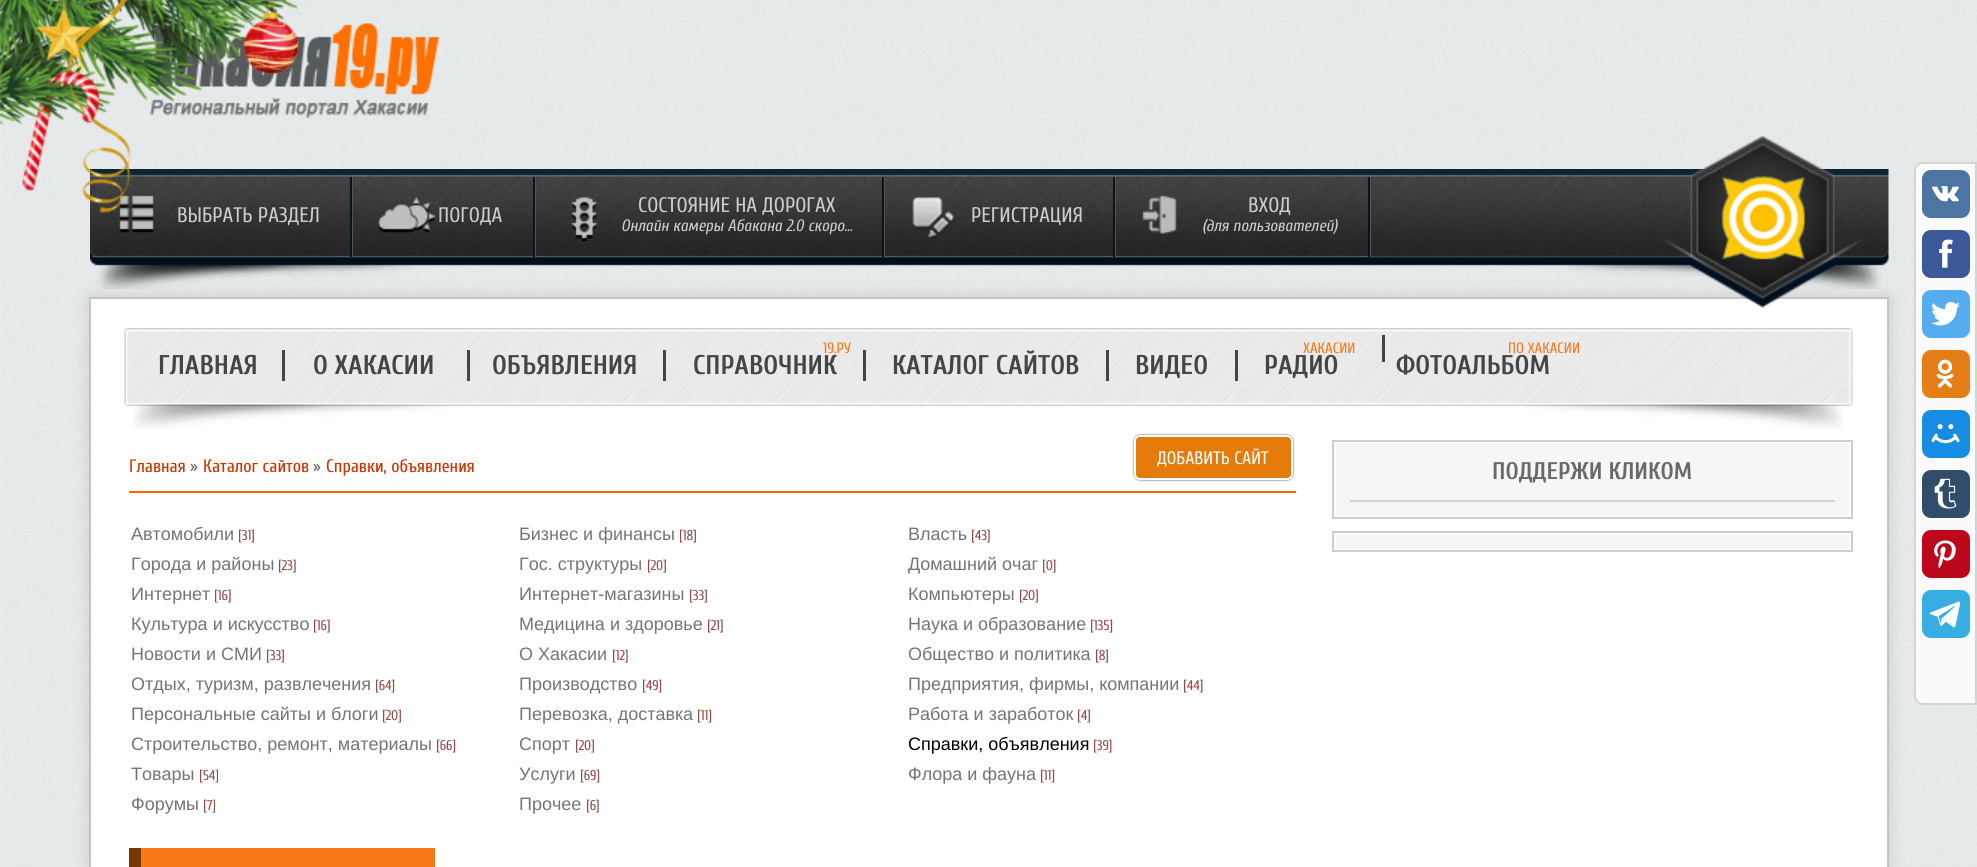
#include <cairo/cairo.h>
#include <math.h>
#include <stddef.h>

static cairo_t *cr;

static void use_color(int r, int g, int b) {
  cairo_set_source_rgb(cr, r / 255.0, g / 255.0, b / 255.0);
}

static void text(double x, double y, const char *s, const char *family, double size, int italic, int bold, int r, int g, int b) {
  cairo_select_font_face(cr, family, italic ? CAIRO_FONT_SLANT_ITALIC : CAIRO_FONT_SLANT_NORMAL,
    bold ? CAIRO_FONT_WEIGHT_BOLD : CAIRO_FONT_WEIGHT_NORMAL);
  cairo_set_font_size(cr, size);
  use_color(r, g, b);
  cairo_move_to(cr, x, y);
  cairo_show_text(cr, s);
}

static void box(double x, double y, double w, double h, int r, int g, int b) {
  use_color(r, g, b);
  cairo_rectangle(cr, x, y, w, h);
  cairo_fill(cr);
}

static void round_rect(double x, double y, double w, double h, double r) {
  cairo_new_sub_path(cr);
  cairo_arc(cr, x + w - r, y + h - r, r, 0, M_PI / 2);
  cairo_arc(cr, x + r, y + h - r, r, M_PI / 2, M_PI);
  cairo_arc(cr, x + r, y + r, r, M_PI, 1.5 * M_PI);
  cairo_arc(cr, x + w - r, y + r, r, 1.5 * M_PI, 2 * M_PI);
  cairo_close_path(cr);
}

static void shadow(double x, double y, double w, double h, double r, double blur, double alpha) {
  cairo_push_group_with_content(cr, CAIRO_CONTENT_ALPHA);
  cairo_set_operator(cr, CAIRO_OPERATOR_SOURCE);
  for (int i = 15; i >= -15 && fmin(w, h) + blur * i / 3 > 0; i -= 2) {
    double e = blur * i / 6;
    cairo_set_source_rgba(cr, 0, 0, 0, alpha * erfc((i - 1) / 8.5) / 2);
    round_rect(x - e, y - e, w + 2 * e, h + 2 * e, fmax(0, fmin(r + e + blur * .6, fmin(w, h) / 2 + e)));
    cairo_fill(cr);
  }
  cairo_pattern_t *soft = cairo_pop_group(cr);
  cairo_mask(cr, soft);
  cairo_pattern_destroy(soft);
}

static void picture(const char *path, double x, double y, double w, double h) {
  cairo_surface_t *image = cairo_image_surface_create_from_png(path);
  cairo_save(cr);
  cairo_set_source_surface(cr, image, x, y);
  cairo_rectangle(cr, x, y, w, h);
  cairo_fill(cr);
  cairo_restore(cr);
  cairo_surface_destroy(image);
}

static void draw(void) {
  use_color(230, 234, 234);
  cairo_paint(cr);
  picture("img_01.png", 2, 0, 1975, 866);
  picture("img_03.png", 146, 23, 294, 96);
  use_color(204, 204, 204);
  shadow(89, 297, 1800, 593, 0, 7.5, 1);
  picture("img_04.png", 90, 169, 1799, 120);
  use_color(85, 85, 85);
  cairo_new_path(cr);
  cairo_move_to(cr, 92, 256);
  cairo_line_to(cr, 92, 257);
  cairo_line_to(cr, 353, 257);
  cairo_line_to(cr, 353, 177);
  cairo_line_to(cr, 351, 177);
  cairo_line_to(cr, 351, 256);
  cairo_close_path(cr);
  cairo_fill(cr);
  box(350, 177, 2, 80, 5, 21, 29);
  picture("img_05.png", 119, 195, 35, 38);
  use_color(85, 85, 85);
  cairo_new_path(cr);
  cairo_move_to(cr, 353, 256);
  cairo_line_to(cr, 353, 257);
  cairo_line_to(cr, 536, 257);
  cairo_line_to(cr, 536, 177);
  cairo_line_to(cr, 534, 177);
  cairo_line_to(cr, 534, 256);
  cairo_close_path(cr);
  cairo_fill(cr);
  box(533, 177, 2, 80, 5, 21, 29);
  picture("img_06.png", 378, 197, 57, 37);
  use_color(85, 85, 85);
  cairo_new_path(cr);
  cairo_move_to(cr, 536, 256);
  cairo_line_to(cr, 536, 257);
  cairo_line_to(cr, 885, 257);
  cairo_line_to(cr, 885, 177);
  cairo_line_to(cr, 884, 177);
  cairo_line_to(cr, 884, 256);
  cairo_close_path(cr);
  cairo_fill(cr);
  box(882, 177, 2, 80, 5, 21, 29);
  picture("img_07.png", 571, 196, 27, 45);
  use_color(85, 85, 85);
  cairo_new_path(cr);
  cairo_move_to(cr, 885, 256);
  cairo_line_to(cr, 885, 257);
  cairo_line_to(cr, 1116, 257);
  cairo_line_to(cr, 1116, 177);
  cairo_line_to(cr, 1114, 177);
  cairo_line_to(cr, 1114, 256);
  cairo_close_path(cr);
  cairo_fill(cr);
  box(1113, 177, 2, 80, 5, 21, 29);
  picture("img_08.png", 912, 196, 44, 44);
  use_color(85, 85, 85);
  cairo_new_path(cr);
  cairo_move_to(cr, 1116, 256);
  cairo_line_to(cr, 1116, 257);
  cairo_line_to(cr, 1371, 257);
  cairo_line_to(cr, 1371, 177);
  cairo_line_to(cr, 1370, 177);
  cairo_line_to(cr, 1370, 256);
  cairo_close_path(cr);
  cairo_fill(cr);
  box(1368, 177, 2, 80, 5, 21, 29);
  picture("img_09.png", 1142, 195, 35, 39);
  use_color(255, 255, 255);
  cairo_rectangle(cr, 90, 298, 1798, 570);
  cairo_fill_preserve(cr);
  use_color(195, 197, 197);
  cairo_stroke(cr);
  picture("img_10.png", 1659, 135, 205, 173);
  picture("img_11.png", 124, 328, 1729, 101);
  box(282, 350, 3, 31, 69, 69, 69);
  box(467, 350, 3, 31, 69, 69, 69);
  box(663, 350, 3, 31, 69, 69, 69);
  box(863, 350, 3, 31, 69, 69, 69);
  box(1106, 350, 3, 31, 69, 69, 69);
  box(1235, 350, 3, 31, 69, 69, 69);
  box(1382, 335, 3, 27, 69, 69, 69);
  use_color(79, 79, 79);
  shadow(1134, 435, 159, 45, 6, 1, 1);
  use_color(229, 123, 10);
  round_rect(1135, 436, 157, 43, 5);
  cairo_fill_preserve(cr);
  use_color(255, 255, 255);
  cairo_stroke(cr);
  box(129, 491, 1167, 2, 255, 102, 0);
  box(141, 848, 294, 19, 248, 121, 26);
  box(129, 848, 12, 19, 119, 56, 8);
  box(1336, 443, 513, 73, 246, 246, 246);
  box(1350, 500, 485, 2, 208, 209, 211);
  cairo_rectangle(cr, 1333, 441, 519, 77);
  use_color(205, 205, 205);
  cairo_stroke(cr);
  box(1336, 535, 513, 14, 246, 246, 246);
  cairo_rectangle(cr, 1333, 532, 519, 19);
  use_color(205, 205, 205);
  cairo_stroke(cr);
  use_color(250, 250, 250);
  cairo_new_path(cr);
  cairo_move_to(cr, 1923, 163);
  cairo_line_to(cr, 1976, 163);
  cairo_line_to(cr, 1976, 704);
  cairo_line_to(cr, 1923, 704);
  cairo_curve_to(cr, 1918.5, 704, 1915, 700.5, 1915, 696);
  cairo_line_to(cr, 1915, 171);
  cairo_curve_to(cr, 1915, 166.5, 1918.5, 163, 1923, 163);
  cairo_close_path(cr);
  cairo_fill_preserve(cr);
  use_color(212, 212, 212);
  cairo_stroke(cr);
  use_color(77, 117, 163);
  round_rect(1922, 170, 48, 48, 9);
  cairo_fill(cr);
  picture("img_12.png", 1932, 186, 27, 16);
  use_color(59, 89, 152);
  round_rect(1922, 230, 48, 48, 9);
  cairo_fill(cr);
  picture("img_13.png", 1939, 239, 14, 29);
  use_color(85, 172, 238);
  round_rect(1922, 290, 48, 48, 9);
  cairo_fill(cr);
  picture("img_14.png", 1931, 301, 29, 25);
  use_color(230, 126, 23);
  round_rect(1922, 350, 48, 48, 9);
  cairo_fill(cr);
  picture("img_15.png", 1936, 359, 18, 29);
  use_color(22, 141, 226);
  round_rect(1922, 410, 48, 48, 9);
  cairo_fill(cr);
  picture("img_16.png", 1931, 424, 29, 20);
  use_color(48, 78, 108);
  round_rect(1922, 470, 48, 48, 9);
  cairo_fill(cr);
  picture("img_17.png", 1934, 478, 23, 31);
  use_color(189, 8, 28);
  round_rect(1922, 530, 48, 48, 9);
  cairo_fill(cr);
  picture("img_18.png", 1934, 540, 22, 29);
  use_color(55, 174, 226);
  round_rect(1922, 590, 48, 48, 9);
  cairo_fill(cr);
  picture("img_19.png", 1929, 601, 32, 27);
  text(177, 222, "ВЫБРАТЬ РАЗДЕЛ", "Cuprum", 21, 0, 0, 204, 204, 204);
  picture("img_02.png", 0, 0, 299, 213);
  text(438, 222, "ПОГОДА", "Cuprum", 21, 0, 0, 204, 204, 204);
  text(638, 212, "СОСТОЯНИЕ НА ДОРОГАХ", "Cuprum", 21, 0, 0, 204, 204, 204);
  text(621, 231, "Онлайн камеры Абакана 2.0 скоро...", "Cuprum", 16.5, 1, 0, 204, 204, 204);
  text(971, 222, "РЕГИСТРАЦИЯ", "Cuprum", 21, 0, 0, 204, 204, 204);
  text(1248, 212, "ВХОД", "Cuprum", 21, 0, 0, 204, 204, 204);
  text(1202, 231, "(для пользователей)", "Cuprum", 16.5, 1, 0, 204, 204, 204);
  text(158, 374, "ГЛАВНАЯ", "Cuprum", 27, 0, 1, 69, 69, 69);
  text(313, 374, "О ХАКАСИИ", "Cuprum", 27, 0, 1, 69, 69, 69);
  text(492, 374, "ОБЪЯВЛЕНИЯ", "Cuprum", 27, 0, 1, 69, 69, 69);
  text(823, 353, "19.РУ", "Cuprum", 15, 0, 0, 248, 121, 26);
  text(693, 374, "СПРАВОЧНИК", "Cuprum", 27, 0, 1, 69, 69, 69);
  text(892, 374, "КАТАЛОГ САЙТОВ", "Cuprum", 27, 0, 1, 69, 69, 69);
  text(1135, 374, "ВИДЕО", "Cuprum", 27, 0, 1, 69, 69, 69);
  text(1303, 353, "ХАКАСИИ", "Cuprum", 15, 0, 0, 248, 121, 26);
  text(1264, 374, "РАДИО", "Cuprum", 27, 0, 1, 69, 69, 69);
  text(1508, 353, "ПО ХАКАСИИ", "Cuprum", 15, 0, 0, 248, 121, 26);
  text(1396, 374, "ФОТОАЛЬБОМ", "Cuprum", 27, 0, 1, 69, 69, 69);
  text(129, 472, "Главная", "Cuprum", 18, 0, 0, 204, 51, 0);
  text(190, 472, "»", "Cuprum", 18, 0, 0, 105, 105, 105);
  text(203, 472, "Каталог сайтов", "Cuprum", 18, 0, 0, 204, 51, 0);
  text(313, 472, "»", "Cuprum", 18, 0, 0, 105, 105, 105);
  text(326, 472, "Справки, объявления", "Cuprum", 18, 0, 0, 204, 51, 0);
  text(1157, 464, "ДОБАВИТЬ САЙТ", "Cuprum", 18, 0, 0, 255, 255, 255);
  text(131, 540, "Автомобили", "Liberation Sans", 18, 0, 0, 116, 116, 116);
  text(238, 540, "[31]", "Cuprum", 14, 0, 0, 147, 74, 74);
  text(519, 540, "Бизнес и финансы", "Liberation Sans", 18, 0, 0, 116, 116, 116);
  text(679, 540, "[18]", "Cuprum", 14, 0, 0, 147, 74, 74);
  text(908, 540, "Власть", "Liberation Sans", 18, 0, 0, 116, 116, 116);
  text(971, 540, "[43]", "Cuprum", 14, 0, 0, 147, 74, 74);
  text(131, 570, "Города и районы", "Liberation Sans", 18, 0, 0, 116, 116, 116);
  text(278, 570, "[23]", "Cuprum", 14, 0, 0, 147, 74, 74);
  text(519, 570, "Гос. структуры", "Liberation Sans", 18, 0, 0, 116, 116, 116);
  text(647, 570, "[20]", "Cuprum", 14, 0, 0, 147, 74, 74);
  text(908, 570, "Домашний очаг", "Liberation Sans", 18, 0, 0, 116, 116, 116);
  text(1042, 570, "[0]", "Cuprum", 14, 0, 0, 147, 74, 74);
  text(131, 600, "Интернет", "Liberation Sans", 18, 0, 0, 116, 116, 116);
  text(214, 600, "[16]", "Cuprum", 14, 0, 0, 147, 74, 74);
  text(519, 600, "Интернет-магазины", "Liberation Sans", 18, 0, 0, 116, 116, 116);
  text(689, 600, "[33]", "Cuprum", 14, 0, 0, 147, 74, 74);
  text(908, 600, "Компьютеры", "Liberation Sans", 18, 0, 0, 116, 116, 116);
  text(1019, 600, "[20]", "Cuprum", 14, 0, 0, 147, 74, 74);
  text(131, 630, "Культура и искусство", "Liberation Sans", 18, 0, 0, 116, 116, 116);
  text(313, 630, "[16]", "Cuprum", 14, 0, 0, 147, 74, 74);
  text(519, 630, "Медицина и здоровье", "Liberation Sans", 18, 0, 0, 116, 116, 116);
  text(707, 630, "[21]", "Cuprum", 14, 0, 0, 147, 74, 74);
  text(908, 630, "Наука и образование", "Liberation Sans", 18, 0, 0, 116, 116, 116);
  text(1090, 630, "[135]", "Cuprum", 14, 0, 0, 147, 74, 74);
  text(131, 660, "Новости и СМИ", "Liberation Sans", 18, 0, 0, 116, 116, 116);
  text(266, 660, "[33]", "Cuprum", 14, 0, 0, 147, 74, 74);
  text(519, 660, "О Хакасии", "Liberation Sans", 18, 0, 0, 116, 116, 116);
  text(612, 660, "[12]", "Cuprum", 14, 0, 0, 147, 74, 74);
  text(908, 660, "Общество и политика", "Liberation Sans", 18, 0, 0, 116, 116, 116);
  text(1095, 660, "[8]", "Cuprum", 14, 0, 0, 147, 74, 74);
  text(131, 690, "Отдых, туризм, развлечения", "Liberation Sans", 18, 0, 0, 116, 116, 116);
  text(375, 690, "[64]", "Cuprum", 14, 0, 0, 147, 74, 74);
  text(519, 690, "Производство", "Liberation Sans", 18, 0, 0, 116, 116, 116);
  text(642, 690, "[49]", "Cuprum", 14, 0, 0, 147, 74, 74);
  text(908, 690, "Предприятия, фирмы, компании", "Liberation Sans", 18, 0, 0, 116, 116, 116);
  text(1183, 690, "[44]", "Cuprum", 14, 0, 0, 147, 74, 74);
  text(131, 720, "Персональные сайты и блоги", "Liberation Sans", 18, 0, 0, 116, 116, 116);
  text(382, 720, "[20]", "Cuprum", 14, 0, 0, 147, 74, 74);
  text(519, 720, "Перевозка, доставка", "Liberation Sans", 18, 0, 0, 116, 116, 116);
  text(697, 720, "[11]", "Cuprum", 14, 0, 0, 147, 74, 74);
  text(908, 720, "Работа и заработок", "Liberation Sans", 18, 0, 0, 116, 116, 116);
  text(1077, 720, "[4]", "Cuprum", 14, 0, 0, 147, 74, 74);
  text(131, 750, "Строительство, ремонт, материалы", "Liberation Sans", 18, 0, 0, 116, 116, 116);
  text(436, 750, "[66]", "Cuprum", 14, 0, 0, 147, 74, 74);
  text(519, 750, "Спорт", "Liberation Sans", 18, 0, 0, 116, 116, 116);
  text(575, 750, "[20]", "Cuprum", 14, 0, 0, 147, 74, 74);
  text(908, 750, "Справки, объявления", "Liberation Sans", 18, 0, 0, 0, 0, 0);
  text(1093, 750, "[39]", "Cuprum", 14, 0, 0, 147, 74, 74);
  text(131, 780, "Товары", "Liberation Sans", 18, 0, 0, 116, 116, 116);
  text(199, 780, "[54]", "Cuprum", 14, 0, 0, 147, 74, 74);
  text(519, 780, "Услуги", "Liberation Sans", 18, 0, 0, 116, 116, 116);
  text(580, 780, "[69]", "Cuprum", 14, 0, 0, 147, 74, 74);
  text(908, 780, "Флора и фауна", "Liberation Sans", 18, 0, 0, 116, 116, 116);
  text(1040, 780, "[11]", "Cuprum", 14, 0, 0, 147, 74, 74);
  text(131, 810, "Форумы", "Liberation Sans", 18, 0, 0, 116, 116, 116);
  text(203, 810, "[7]", "Cuprum", 14, 0, 0, 147, 74, 74);
  text(519, 810, "Прочее", "Liberation Sans", 18, 0, 0, 116, 116, 116);
  text(586, 810, "[6]", "Cuprum", 14, 0, 0, 147, 74, 74);
  text(1492, 479, "ПОДДЕРЖИ КЛИКОМ", "Cuprum", 24, 0, 1, 105, 105, 105);
}

int main(void) {
  cairo_surface_t *surface = cairo_image_surface_create(CAIRO_FORMAT_RGB24, 1977, 867);
  cr = cairo_create(surface);
  cairo_font_options_t *options = cairo_font_options_create();
  cairo_font_options_set_hint_metrics(options, CAIRO_HINT_METRICS_OFF);
  cairo_font_options_set_hint_style(options, CAIRO_HINT_STYLE_NONE);
  cairo_set_font_options(cr, options);
  cairo_set_miter_limit(cr, 4);
  draw();
  cairo_surface_write_to_png(surface, "out.png");
  cairo_font_options_destroy(options);
  cairo_destroy(cr);
  cairo_surface_destroy(surface);
  return 0;
}
